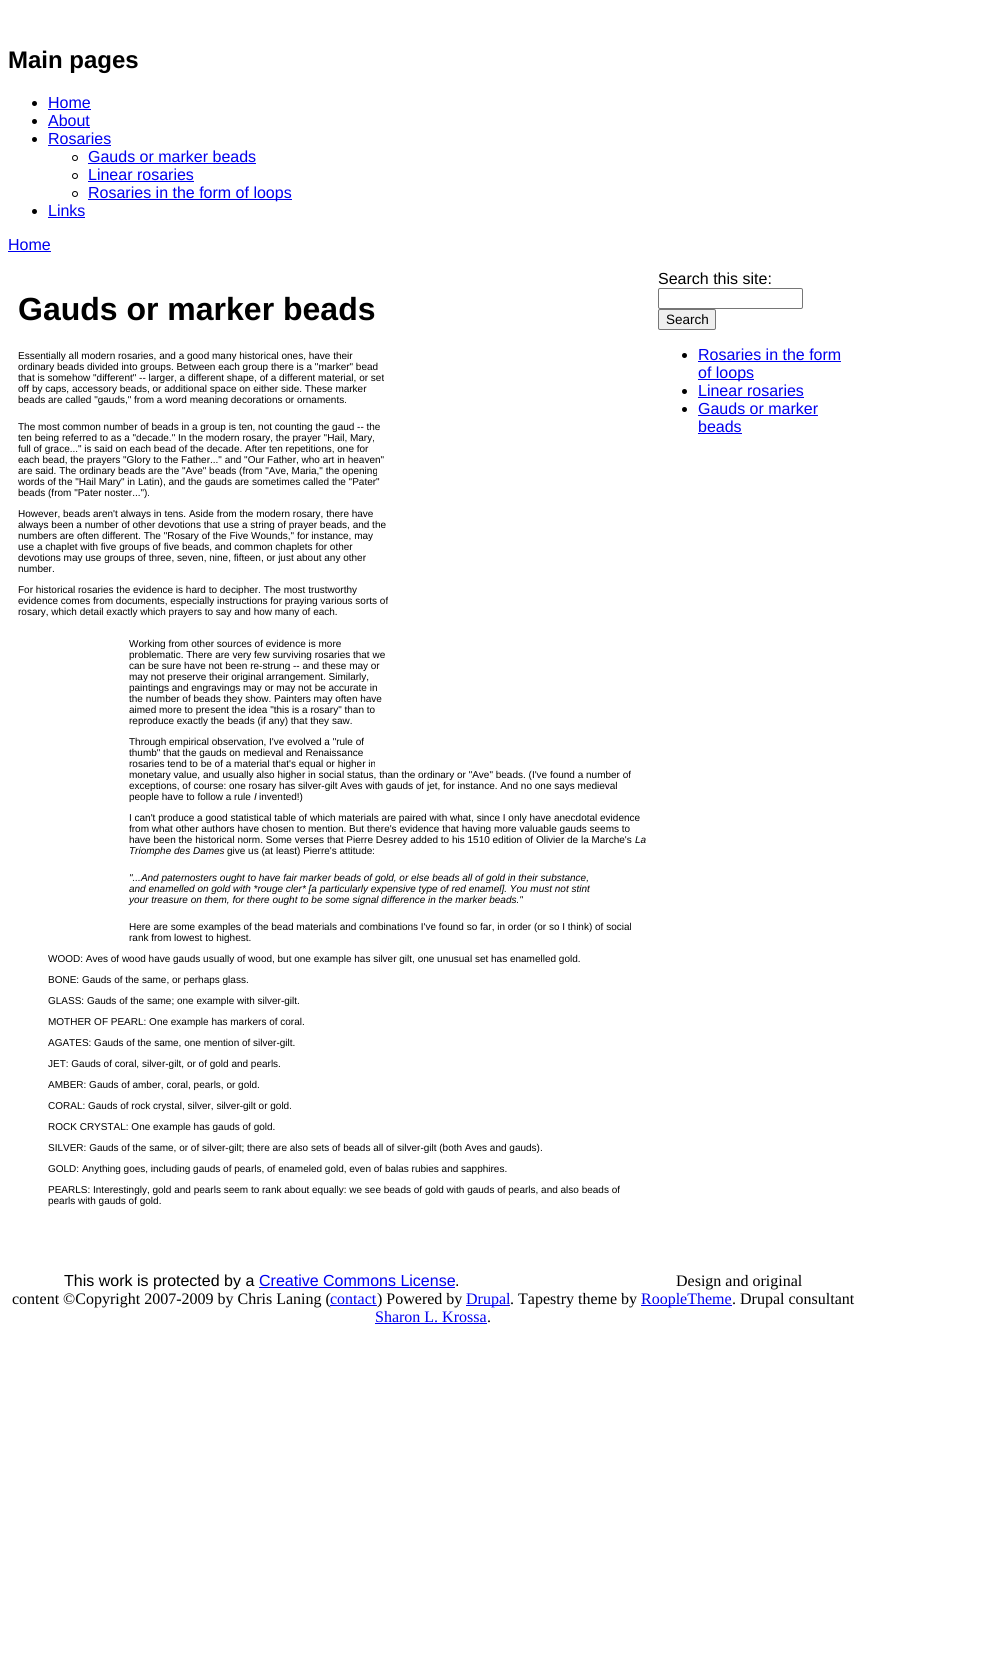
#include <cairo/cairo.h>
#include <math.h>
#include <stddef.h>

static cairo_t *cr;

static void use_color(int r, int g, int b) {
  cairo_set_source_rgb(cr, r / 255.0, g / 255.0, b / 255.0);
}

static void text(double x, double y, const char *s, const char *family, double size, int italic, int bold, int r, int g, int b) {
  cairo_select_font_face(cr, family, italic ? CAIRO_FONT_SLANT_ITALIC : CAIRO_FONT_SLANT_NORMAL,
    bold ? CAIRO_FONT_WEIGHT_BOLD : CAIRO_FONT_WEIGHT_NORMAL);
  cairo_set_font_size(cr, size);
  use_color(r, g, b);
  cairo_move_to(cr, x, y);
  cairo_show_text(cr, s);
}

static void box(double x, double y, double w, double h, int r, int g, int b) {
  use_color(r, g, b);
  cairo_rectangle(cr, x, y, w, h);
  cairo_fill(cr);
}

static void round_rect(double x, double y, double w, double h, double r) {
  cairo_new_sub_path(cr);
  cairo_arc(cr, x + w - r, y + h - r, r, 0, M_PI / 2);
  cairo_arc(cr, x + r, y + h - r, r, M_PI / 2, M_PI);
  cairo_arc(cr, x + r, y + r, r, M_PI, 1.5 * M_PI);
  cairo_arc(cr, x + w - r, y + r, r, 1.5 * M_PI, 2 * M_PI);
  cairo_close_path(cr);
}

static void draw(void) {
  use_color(255, 255, 255);
  cairo_paint(cr);
  use_color(0, 0, 0);
  cairo_arc(cr, 34.5, 103.5, 2.5, 0, 2 * M_PI);
  cairo_fill(cr);
  box(48, 109, 43, 1, 0, 0, 238);
  use_color(0, 0, 0);
  cairo_arc(cr, 34.5, 121.5, 2.5, 0, 2 * M_PI);
  cairo_fill(cr);
  box(48, 127, 42, 1, 0, 0, 238);
  use_color(0, 0, 0);
  cairo_arc(cr, 34.5, 139.5, 2.5, 0, 2 * M_PI);
  cairo_fill(cr);
  box(48, 145, 63, 1, 0, 0, 238);
  cairo_arc(cr, 75, 158, 2.5, 0, 2 * M_PI);
  use_color(0, 0, 0);
  cairo_set_line_width(cr, 1);
  cairo_stroke(cr);
  box(88, 163, 168, 1, 0, 0, 238);
  cairo_arc(cr, 75, 176, 2.5, 0, 2 * M_PI);
  use_color(0, 0, 0);
  cairo_stroke(cr);
  box(88, 181, 106, 1, 0, 0, 238);
  cairo_arc(cr, 75, 194, 2.5, 0, 2 * M_PI);
  use_color(0, 0, 0);
  cairo_stroke(cr);
  box(88, 199, 204, 1, 0, 0, 238);
  use_color(0, 0, 0);
  cairo_arc(cr, 34.5, 211.5, 2.5, 0, 2 * M_PI);
  cairo_fill(cr);
  box(48, 217, 37, 1, 0, 0, 238);
  box(8, 251, 43, 1, 0, 0, 238);
  round_rect(658.5, 288.5, 144, 20, 1.5);
  use_color(118, 118, 118);
  cairo_stroke(cr);
  use_color(239, 239, 239);
  round_rect(658.5, 309.5, 57, 20, 1.5);
  cairo_fill_preserve(cr);
  use_color(118, 118, 118);
  cairo_stroke(cr);
  use_color(0, 0, 0);
  cairo_arc(cr, 684.5, 355.5, 2.5, 0, 2 * M_PI);
  cairo_fill(cr);
  box(698, 361, 143, 1, 0, 0, 238);
  box(698, 379, 56, 1, 0, 0, 238);
  use_color(0, 0, 0);
  cairo_arc(cr, 684.5, 391.5, 2.5, 0, 2 * M_PI);
  cairo_fill(cr);
  box(698, 397, 106, 1, 0, 0, 238);
  use_color(0, 0, 0);
  cairo_arc(cr, 684.5, 409.5, 2.5, 0, 2 * M_PI);
  cairo_fill(cr);
  box(698, 415, 120, 1, 0, 0, 238);
  box(698, 433, 44, 1, 0, 0, 238);
  box(259, 1287, 196, 1, 0, 0, 238);
  box(330, 1305, 47, 1, 0, 0, 238);
  box(466, 1305, 44, 1, 0, 0, 238);
  box(641, 1305, 91, 1, 0, 0, 238);
  box(375, 1323, 112, 1, 0, 0, 238);
  text(8, 68, "Main pages", "Liberation Sans", 24, 0, 1, 0, 0, 0);
  text(48, 108, "Home", "Liberation Sans", 16, 0, 0, 0, 0, 238);
  text(48, 126, "About", "Liberation Sans", 16, 0, 0, 0, 0, 238);
  text(48, 144, "Rosaries", "Liberation Sans", 16, 0, 0, 0, 0, 238);
  text(88, 162, "Gauds or marker beads", "Liberation Sans", 16, 0, 0, 0, 0, 238);
  text(88, 180, "Linear rosaries", "Liberation Sans", 16, 0, 0, 0, 0, 238);
  text(88, 198, "Rosaries in the form of loops", "Liberation Sans", 16, 0, 0, 0, 0, 238);
  text(48, 216, "Links", "Liberation Sans", 16, 0, 0, 0, 0, 238);
  text(8, 250, "Home", "Liberation Sans", 16, 0, 0, 0, 0, 238);
  text(18, 320, "Gauds or marker beads", "Liberation Sans", 32, 0, 1, 0, 0, 0);
  text(18, 359, "Essentially all modern rosaries, and a good many historical ones, have their", "Liberation Sans", 10, 0, 0, 0, 0, 0);
  text(18, 370, "ordinary beads divided into groups. Between each group there is a \"marker\" bead", "Liberation Sans", 10, 0, 0, 0, 0, 0);
  text(18, 381, "that is somehow \"different\" -- larger, a different shape, of a different material, or set", "Liberation Sans", 10, 0, 0, 0, 0, 0);
  text(18, 392, "off by caps, accessory beads, or additional space on either side. These marker", "Liberation Sans", 10, 0, 0, 0, 0, 0);
  text(18, 403, "beads are called \"gauds,\" from a word meaning decorations or ornaments.", "Liberation Sans", 10, 0, 0, 0, 0, 0);
  text(18, 430, "The most common number of beads in a group is ten, not counting the gaud -- the", "Liberation Sans", 10, 0, 0, 0, 0, 0);
  text(18, 441, "ten being referred to as a \"decade.\" In the modern rosary, the prayer \"Hail, Mary,", "Liberation Sans", 10, 0, 0, 0, 0, 0);
  text(18, 452, "full of grace...\" is said on each bead of the decade. After ten repetitions, one for", "Liberation Sans", 10, 0, 0, 0, 0, 0);
  text(18, 463, "each bead, the prayers \"Glory to the Father...\" and \"Our Father, who art in heaven\"", "Liberation Sans", 10, 0, 0, 0, 0, 0);
  text(18, 474, "are said. The ordinary beads are the \"Ave\" beads (from \"Ave, Maria,\" the opening", "Liberation Sans", 10, 0, 0, 0, 0, 0);
  text(18, 485, "words of the \"Hail Mary\" in Latin), and the gauds are sometimes called the \"Pater\"", "Liberation Sans", 10, 0, 0, 0, 0, 0);
  text(18, 496, "beads (from \"Pater noster...\").", "Liberation Sans", 10, 0, 0, 0, 0, 0);
  text(18, 517, "However, beads aren't always in tens. Aside from the modern rosary, there have", "Liberation Sans", 10, 0, 0, 0, 0, 0);
  text(18, 528, "always been a number of other devotions that use a string of prayer beads, and the", "Liberation Sans", 10, 0, 0, 0, 0, 0);
  text(18, 539, "numbers are often different. The \"Rosary of the Five Wounds,\" for instance, may", "Liberation Sans", 10, 0, 0, 0, 0, 0);
  text(18, 550, "use a chaplet with five groups of five beads, and common chaplets for other", "Liberation Sans", 10, 0, 0, 0, 0, 0);
  text(18, 561, "devotions may use groups of three, seven, nine, fifteen, or just about any other", "Liberation Sans", 10, 0, 0, 0, 0, 0);
  text(18, 572, "number.", "Liberation Sans", 10, 0, 0, 0, 0, 0);
  text(18, 593, "For historical rosaries the evidence is hard to decipher. The most trustworthy", "Liberation Sans", 10, 0, 0, 0, 0, 0);
  text(18, 604, "evidence comes from documents, especially instructions for praying various sorts of", "Liberation Sans", 10, 0, 0, 0, 0, 0);
  text(18, 615, "rosary, which detail exactly which prayers to say and how many of each.", "Liberation Sans", 10, 0, 0, 0, 0, 0);
  text(129, 647, "Working from other sources of evidence is more", "Liberation Sans", 10, 0, 0, 0, 0, 0);
  text(129, 658, "problematic. There are very few surviving rosaries that we", "Liberation Sans", 10, 0, 0, 0, 0, 0);
  text(129, 669, "can be sure have not been re-strung -- and these may or", "Liberation Sans", 10, 0, 0, 0, 0, 0);
  text(129, 680, "may not preserve their original arrangement. Similarly,", "Liberation Sans", 10, 0, 0, 0, 0, 0);
  text(129, 691, "paintings and engravings may or may not be accurate in", "Liberation Sans", 10, 0, 0, 0, 0, 0);
  text(129, 702, "the number of beads they show. Painters may often have", "Liberation Sans", 10, 0, 0, 0, 0, 0);
  text(129, 713, "aimed more to present the idea \"this is a rosary\" than to", "Liberation Sans", 10, 0, 0, 0, 0, 0);
  text(129, 724, "reproduce exactly the beads (if any) that they saw.", "Liberation Sans", 10, 0, 0, 0, 0, 0);
  text(129, 745, "Through empirical observation, I've evolved a \"rule of", "Liberation Sans", 10, 0, 0, 0, 0, 0);
  text(129, 756, "thumb\" that the gauds on medieval and Renaissance", "Liberation Sans", 10, 0, 0, 0, 0, 0);
  text(129, 767, "rosaries tend to be of a material that's equal or higher in", "Liberation Sans", 10, 0, 0, 0, 0, 0);
  text(129, 778, "monetary value, and usually also higher in social status, than the ordinary or \"Ave\" beads. (I've found a number of", "Liberation Sans", 10, 0, 0, 0, 0, 0);
  text(129, 789, "exceptions, of course: one rosary has silver-gilt Aves with gauds of jet, for instance. And no one says medieval", "Liberation Sans", 10, 0, 0, 0, 0, 0);
  text(129, 800, "people have to follow a rule", "Liberation Sans", 10, 0, 0, 0, 0, 0);
  text(254, 800, "I", "Liberation Sans", 10, 1, 0, 0, 0, 0);
  text(259, 800, "invented!)", "Liberation Sans", 10, 0, 0, 0, 0, 0);
  text(129, 821, "I can't produce a good statistical table of which materials are paired with what, since I only have anecdotal evidence", "Liberation Sans", 10, 0, 0, 0, 0, 0);
  text(129, 832, "from what other authors have chosen to mention. But there's evidence that having more valuable gauds seems to", "Liberation Sans", 10, 0, 0, 0, 0, 0);
  text(129, 843, "have been the historical norm. Some verses that Pierre Desrey added to his 1510 edition of Olivier de la Marche's", "Liberation Sans", 10, 0, 0, 0, 0, 0);
  text(635, 843, "La", "Liberation Sans", 10, 1, 0, 0, 0, 0);
  text(129, 854, "Triomphe des Dames", "Liberation Sans", 10, 1, 0, 0, 0, 0);
  text(227, 854, "give us (at least) Pierre's attitude:", "Liberation Sans", 10, 0, 0, 0, 0, 0);
  text(129, 881, "\"...And paternosters ought to have fair marker beads of gold, or else beads all of gold in their substance,", "Liberation Sans", 10, 1, 0, 0, 0, 0);
  text(129, 892, "and enamelled on gold with *rouge cler* [a particularly expensive type of red enamel]. You must not stint", "Liberation Sans", 10, 1, 0, 0, 0, 0);
  text(129, 903, "your treasure on them, for there ought to be some signal difference in the marker beads.\"", "Liberation Sans", 10, 1, 0, 0, 0, 0);
  text(129, 930, "Here are some examples of the bead materials and combinations I've found so far, in order (or so I think) of social", "Liberation Sans", 10, 0, 0, 0, 0, 0);
  text(129, 941, "rank from lowest to highest.", "Liberation Sans", 10, 0, 0, 0, 0, 0);
  text(48, 962, "WOOD: Aves of wood have gauds usually of wood, but one example has silver gilt, one unusual set has enamelled gold.", "Liberation Sans", 10, 0, 0, 0, 0, 0);
  text(48, 983, "BONE: Gauds of the same, or perhaps glass.", "Liberation Sans", 10, 0, 0, 0, 0, 0);
  text(48, 1004, "GLASS: Gauds of the same; one example with silver-gilt.", "Liberation Sans", 10, 0, 0, 0, 0, 0);
  text(48, 1025, "MOTHER OF PEARL: One example has markers of coral.", "Liberation Sans", 10, 0, 0, 0, 0, 0);
  text(48, 1046, "AGATES: Gauds of the same, one mention of silver-gilt.", "Liberation Sans", 10, 0, 0, 0, 0, 0);
  text(48, 1067, "JET: Gauds of coral, silver-gilt, or of gold and pearls.", "Liberation Sans", 10, 0, 0, 0, 0, 0);
  text(48, 1088, "AMBER: Gauds of amber, coral, pearls, or gold.", "Liberation Sans", 10, 0, 0, 0, 0, 0);
  text(48, 1109, "CORAL: Gauds of rock crystal, silver, silver-gilt or gold.", "Liberation Sans", 10, 0, 0, 0, 0, 0);
  text(48, 1130, "ROCK CRYSTAL: One example has gauds of gold.", "Liberation Sans", 10, 0, 0, 0, 0, 0);
  text(48, 1151, "SILVER: Gauds of the same, or of silver-gilt; there are also sets of beads all of silver-gilt (both Aves and gauds).", "Liberation Sans", 10, 0, 0, 0, 0, 0);
  text(48, 1172, "GOLD: Anything goes, including gauds of pearls, of enameled gold, even of balas rubies and sapphires.", "Liberation Sans", 10, 0, 0, 0, 0, 0);
  text(48, 1193, "PEARLS: Interestingly, gold and pearls seem to rank about equally: we see beads of gold with gauds of pearls, and also beads of", "Liberation Sans", 10, 0, 0, 0, 0, 0);
  text(48, 1204, "pearls with gauds of gold.", "Liberation Sans", 10, 0, 0, 0, 0, 0);
  text(658, 284, "Search this site:", "Liberation Sans", 16, 0, 0, 0, 0, 0);
  text(666, 324, "Search", "Liberation Sans", 13.5, 0, 0, 0, 0, 0);
  text(698, 360, "Rosaries in the form", "Liberation Sans", 16, 0, 0, 0, 0, 238);
  text(698, 378, "of loops", "Liberation Sans", 16, 0, 0, 0, 0, 238);
  text(698, 396, "Linear rosaries", "Liberation Sans", 16, 0, 0, 0, 0, 238);
  text(698, 414, "Gauds or marker", "Liberation Sans", 16, 0, 0, 0, 0, 238);
  text(698, 432, "beads", "Liberation Sans", 16, 0, 0, 0, 0, 238);
  text(64, 1286, "This work is protected by a", "Liberation Sans", 16, 0, 0, 0, 0, 0);
  text(259, 1286, "Creative Commons License", "Liberation Sans", 16, 0, 0, 0, 0, 238);
  text(455, 1286, ".", "Liberation Sans", 16, 0, 0, 0, 0, 0);
  text(676, 1286, "Design and original", "Liberation Serif", 16, 0, 0, 0, 0, 0);
  text(12, 1304, "content ©Copyright 2007-2009 by Chris Laning (", "Liberation Serif", 16, 0, 0, 0, 0, 0);
  text(330, 1304, "contact", "Liberation Serif", 16, 0, 0, 0, 0, 238);
  text(377, 1304, ") Powered by", "Liberation Serif", 16, 0, 0, 0, 0, 0);
  text(466, 1304, "Drupal", "Liberation Serif", 16, 0, 0, 0, 0, 238);
  text(510, 1304, ". Tapestry theme by", "Liberation Serif", 16, 0, 0, 0, 0, 0);
  text(641, 1304, "RoopleTheme", "Liberation Serif", 16, 0, 0, 0, 0, 238);
  text(732, 1304, ". Drupal consultant", "Liberation Serif", 16, 0, 0, 0, 0, 0);
  text(375, 1322, "Sharon L. Krossa", "Liberation Serif", 16, 0, 0, 0, 0, 238);
  text(487, 1322, ".", "Liberation Serif", 16, 0, 0, 0, 0, 0);
}

int main(void) {
  cairo_surface_t *surface = cairo_image_surface_create(CAIRO_FORMAT_RGB24, 996, 1680);
  cr = cairo_create(surface);
  cairo_font_options_t *options = cairo_font_options_create();
  cairo_font_options_set_hint_metrics(options, CAIRO_HINT_METRICS_OFF);
  cairo_font_options_set_hint_style(options, CAIRO_HINT_STYLE_NONE);
  cairo_set_font_options(cr, options);
  cairo_set_miter_limit(cr, 4);
  draw();
  cairo_surface_write_to_png(surface, "out.png");
  cairo_font_options_destroy(options);
  cairo_destroy(cr);
  cairo_surface_destroy(surface);
  return 0;
}
